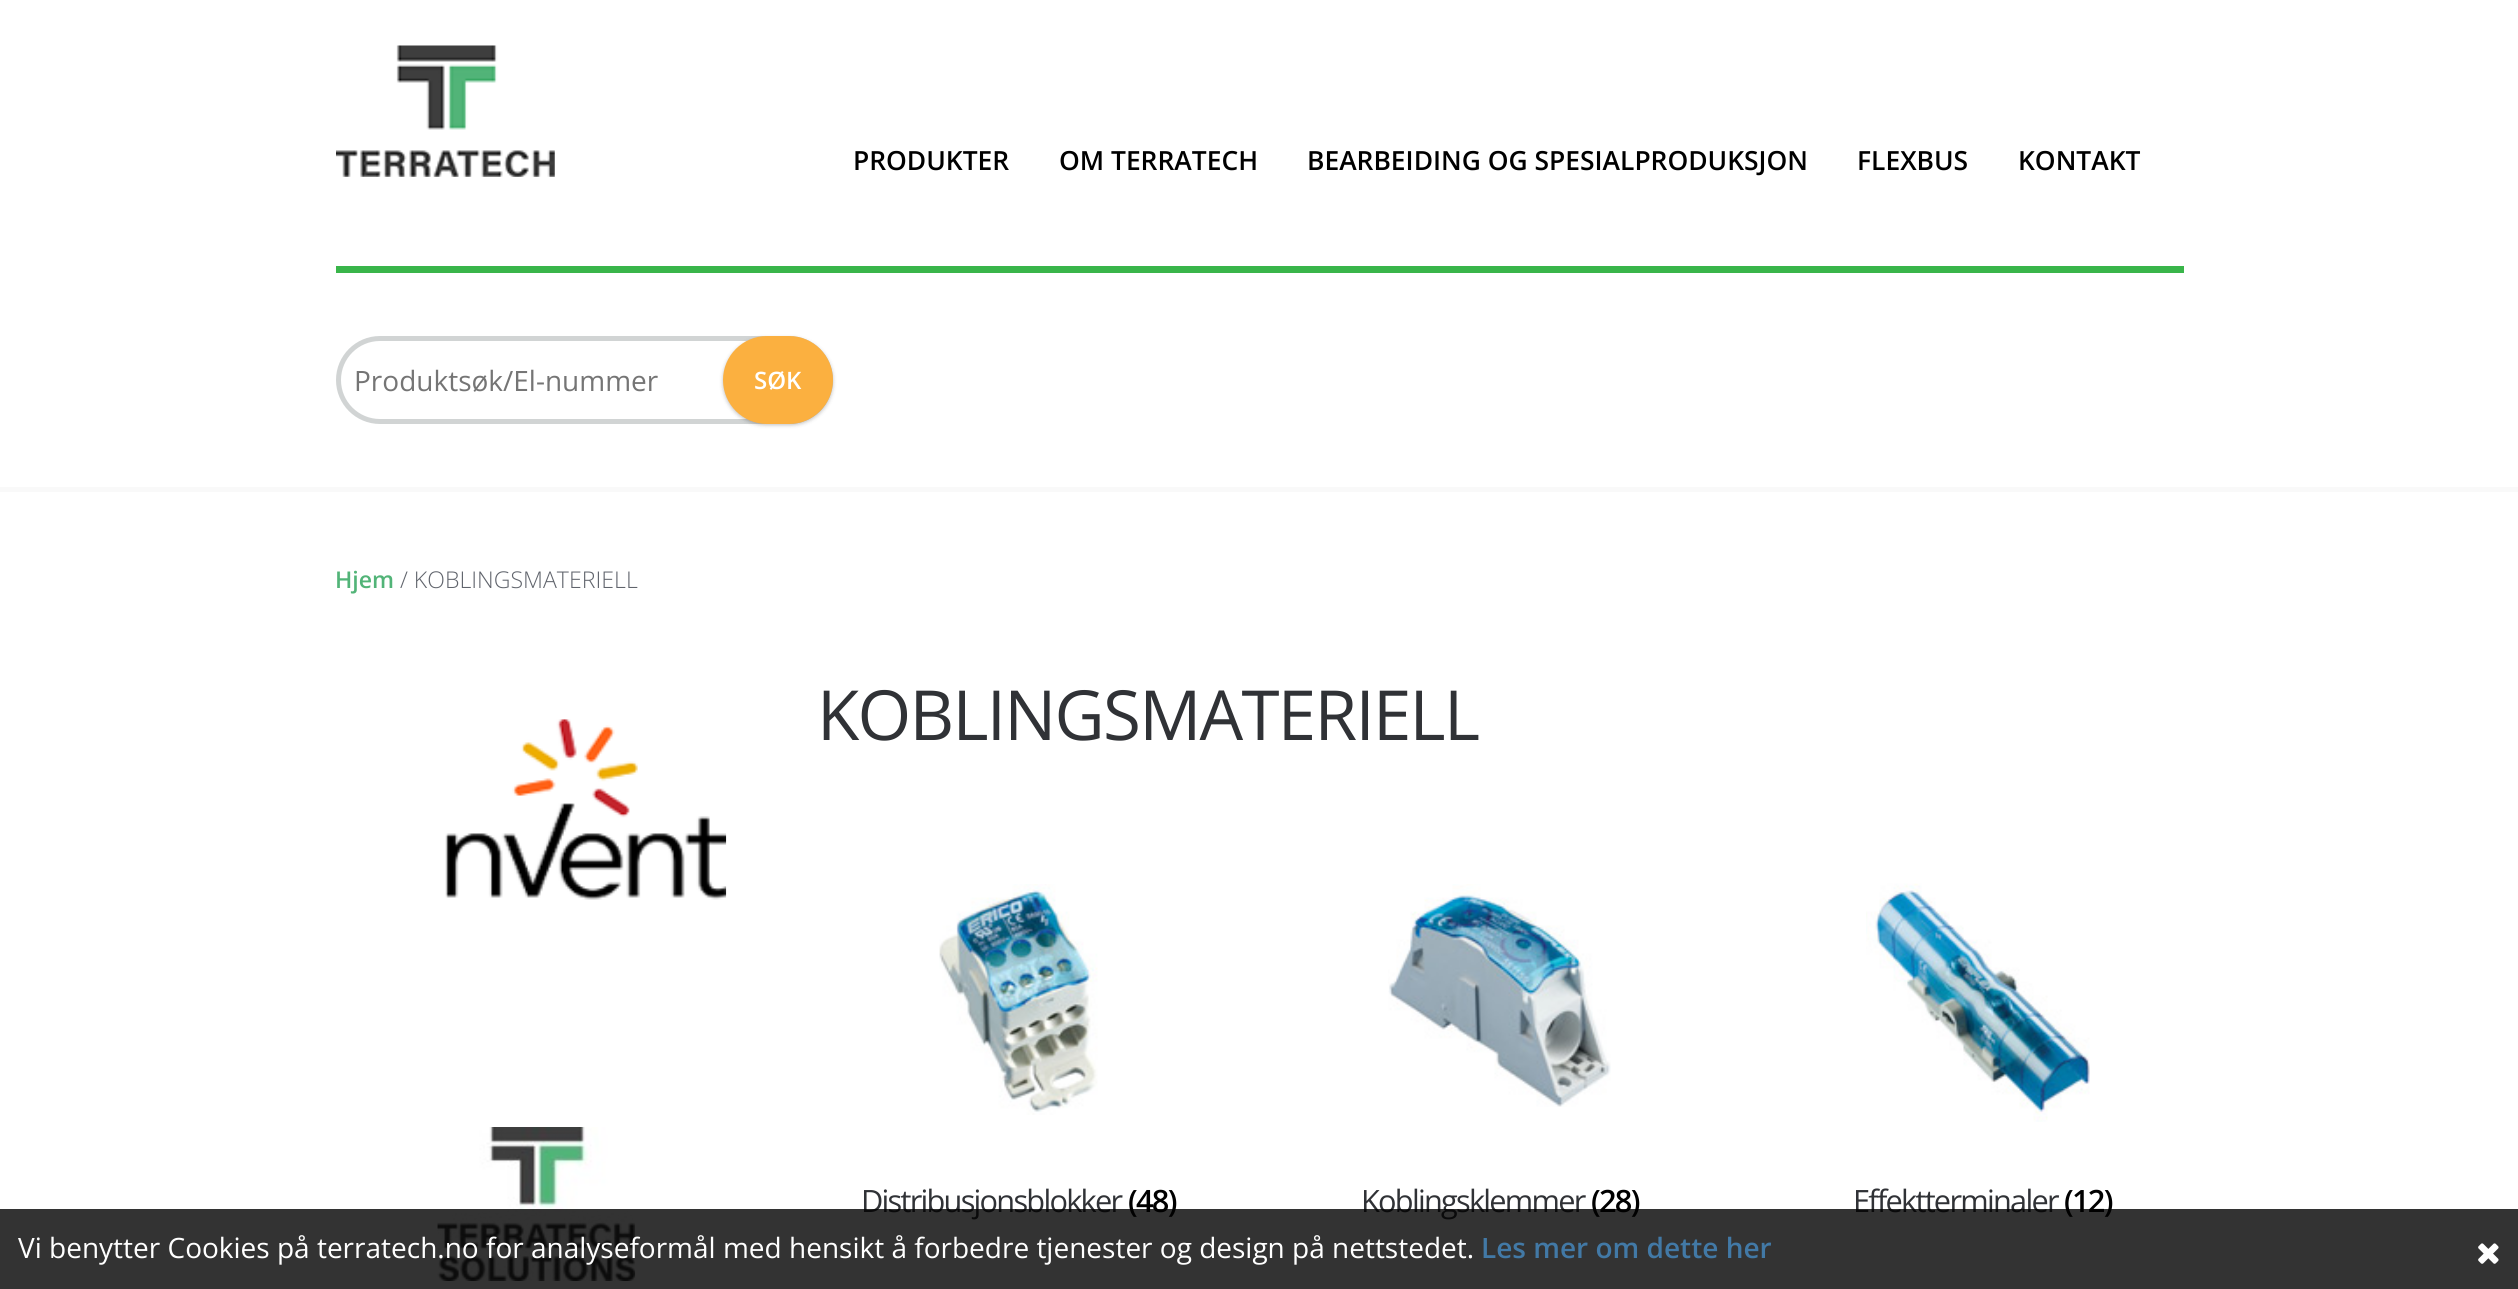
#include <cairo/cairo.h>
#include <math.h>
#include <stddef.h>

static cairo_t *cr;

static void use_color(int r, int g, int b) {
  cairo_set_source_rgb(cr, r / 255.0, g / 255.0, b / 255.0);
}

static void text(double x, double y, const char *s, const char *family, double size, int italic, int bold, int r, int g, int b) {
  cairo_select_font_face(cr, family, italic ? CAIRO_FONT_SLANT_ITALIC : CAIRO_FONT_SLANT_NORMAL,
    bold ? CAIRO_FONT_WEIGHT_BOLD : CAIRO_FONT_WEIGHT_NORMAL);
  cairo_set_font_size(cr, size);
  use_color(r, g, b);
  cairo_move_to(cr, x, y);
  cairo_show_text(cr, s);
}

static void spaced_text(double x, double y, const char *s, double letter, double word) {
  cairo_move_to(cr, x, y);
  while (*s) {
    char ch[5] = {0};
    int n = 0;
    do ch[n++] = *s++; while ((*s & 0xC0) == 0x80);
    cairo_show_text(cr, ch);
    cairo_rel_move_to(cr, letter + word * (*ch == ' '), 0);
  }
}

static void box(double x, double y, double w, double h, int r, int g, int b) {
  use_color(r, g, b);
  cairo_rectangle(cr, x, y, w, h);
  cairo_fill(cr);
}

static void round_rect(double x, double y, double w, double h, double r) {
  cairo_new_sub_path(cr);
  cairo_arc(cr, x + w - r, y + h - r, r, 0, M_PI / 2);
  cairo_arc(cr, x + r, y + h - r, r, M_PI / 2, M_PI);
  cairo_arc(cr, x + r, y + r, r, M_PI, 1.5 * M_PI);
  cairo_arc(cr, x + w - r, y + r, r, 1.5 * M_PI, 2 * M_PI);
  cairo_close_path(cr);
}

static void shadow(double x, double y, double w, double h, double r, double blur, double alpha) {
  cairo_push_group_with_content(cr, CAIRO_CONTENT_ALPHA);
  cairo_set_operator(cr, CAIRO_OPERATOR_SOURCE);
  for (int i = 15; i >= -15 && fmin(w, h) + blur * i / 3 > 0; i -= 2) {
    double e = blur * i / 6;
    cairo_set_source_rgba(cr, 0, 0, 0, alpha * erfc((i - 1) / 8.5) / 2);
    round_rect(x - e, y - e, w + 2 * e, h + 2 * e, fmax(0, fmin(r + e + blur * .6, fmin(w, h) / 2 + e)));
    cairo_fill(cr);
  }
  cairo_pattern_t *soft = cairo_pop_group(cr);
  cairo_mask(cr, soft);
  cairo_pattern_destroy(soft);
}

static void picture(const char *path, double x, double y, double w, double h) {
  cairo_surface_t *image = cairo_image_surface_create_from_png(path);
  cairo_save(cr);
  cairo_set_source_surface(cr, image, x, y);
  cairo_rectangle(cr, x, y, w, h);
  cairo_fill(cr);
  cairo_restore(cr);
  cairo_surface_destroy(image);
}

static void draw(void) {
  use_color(255, 255, 255);
  cairo_paint(cr);
  box(0, 487, 2518, 5, 249, 249, 249);
  picture("img_01.png", 336, 45, 219, 132);
  box(336, 266, 1848, 7, 57, 181, 74);
  round_rect(338.5, 338.5, 492, 83, 41.5);
  use_color(209, 212, 212);
  cairo_set_line_width(cr, 5);
  cairo_stroke(cr);
  use_color(0, 0, 0);
  shadow(723, 338, 110, 87, 43.5, 2, 0.25);
  use_color(251, 176, 64);
  round_rect(723, 336, 110, 88, 44);
  cairo_fill(cr);
  picture("img_02.png", 445, 719, 282, 181);
  picture("img_03.png", 437, 1127, 199, 154);
  picture("img_04.png", 939, 884, 159, 231);
  picture("img_05.png", 1388, 884, 223, 223);
  picture("img_06.png", 1866, 883, 224, 239);
  text(853, 170, "PRODUKTER", "Open Sans SemiBold", 26.4, 0, 0, 0, 0, 0);
  text(1059, 170, "OM TERRATECH", "Open Sans SemiBold", 26.4, 0, 0, 0, 0, 0);
  text(1307, 170, "BEARBEIDING OG SPESIALPRODUKSJON", "Open Sans SemiBold", 26.4, 0, 0, 0, 0, 0);
  text(1857, 170, "FLEXBUS", "Open Sans SemiBold", 26.4, 0, 0, 0, 0, 0);
  text(2018, 170, "KONTAKT", "Open Sans SemiBold", 26.4, 0, 0, 0, 0, 0);
  text(354, 391, "Produktsøk/El-nummer", "Open Sans", 28, 0, 0, 117, 117, 117);
  text(754, 389, "SØK", "Open Sans SemiBold", 24, 0, 0, 255, 255, 255);
  text(335, 588, "Hjem", "Open Sans SemiBold", 23.1, 0, 0, 82, 180, 120);
  text(400, 588, "/ KOBLINGSMATERIELL", "Open Sans Light", 23.1, 0, 0, 96, 100, 108);
  cairo_select_font_face(cr, "Open Sans", CAIRO_FONT_SLANT_NORMAL, CAIRO_FONT_WEIGHT_NORMAL);
  cairo_set_font_size(cr, 69.1);
  use_color(48, 50, 54);
  spaced_text(817, 740, "KOBLINGSMATERIELL", -1.75, 0);
  cairo_set_font_size(cr, 30.75);
  spaced_text(861, 1212, "Distribusjonsblokker", -1.75, 0);
  cairo_select_font_face(cr, "Open Sans SemiBold", CAIRO_FONT_SLANT_NORMAL, CAIRO_FONT_WEIGHT_NORMAL);
  use_color(0, 0, 0);
  spaced_text(1128, 1212, "(48)", -1.75, 0);
  cairo_select_font_face(cr, "Open Sans", CAIRO_FONT_SLANT_NORMAL, CAIRO_FONT_WEIGHT_NORMAL);
  use_color(48, 50, 54);
  spaced_text(1361, 1212, "Koblingsklemmer", -1.75, 0);
  cairo_select_font_face(cr, "Open Sans SemiBold", CAIRO_FONT_SLANT_NORMAL, CAIRO_FONT_WEIGHT_NORMAL);
  use_color(0, 0, 0);
  spaced_text(1591, 1212, "(28)", -1.75, 0);
  cairo_select_font_face(cr, "Open Sans", CAIRO_FONT_SLANT_NORMAL, CAIRO_FONT_WEIGHT_NORMAL);
  use_color(48, 50, 54);
  spaced_text(1853, 1212, "Effektterminaler", -1.75, 0);
  cairo_select_font_face(cr, "Open Sans SemiBold", CAIRO_FONT_SLANT_NORMAL, CAIRO_FONT_WEIGHT_NORMAL);
  use_color(0, 0, 0);
  spaced_text(2064, 1212, "(12)", -1.75, 0);
  cairo_set_source_rgba(cr, 0, 0, 0, 0.8);
  cairo_rectangle(cr, 0, 1209, 2518, 80);
  cairo_fill(cr);
  text(18, 1258, "Vi benytter Cookies på terratech.no for analyseformål med hensikt å forbedre tjenester og design på nettstedet.", "Open Sans", 28, 0, 0, 255, 255, 255);
  text(1481, 1258, "Les mer om dette her", "Open Sans SemiBold", 28, 0, 0, 66, 121, 166);
  picture("img_07.png", 2478, 1243, 21, 21);
}

int main(void) {
  cairo_surface_t *surface = cairo_image_surface_create(CAIRO_FORMAT_RGB24, 2518, 1289);
  cr = cairo_create(surface);
  cairo_font_options_t *options = cairo_font_options_create();
  cairo_font_options_set_hint_metrics(options, CAIRO_HINT_METRICS_OFF);
  cairo_font_options_set_hint_style(options, CAIRO_HINT_STYLE_NONE);
  cairo_set_font_options(cr, options);
  cairo_set_miter_limit(cr, 4);
  draw();
  cairo_surface_write_to_png(surface, "out.png");
  cairo_font_options_destroy(options);
  cairo_destroy(cr);
  cairo_surface_destroy(surface);
  return 0;
}
